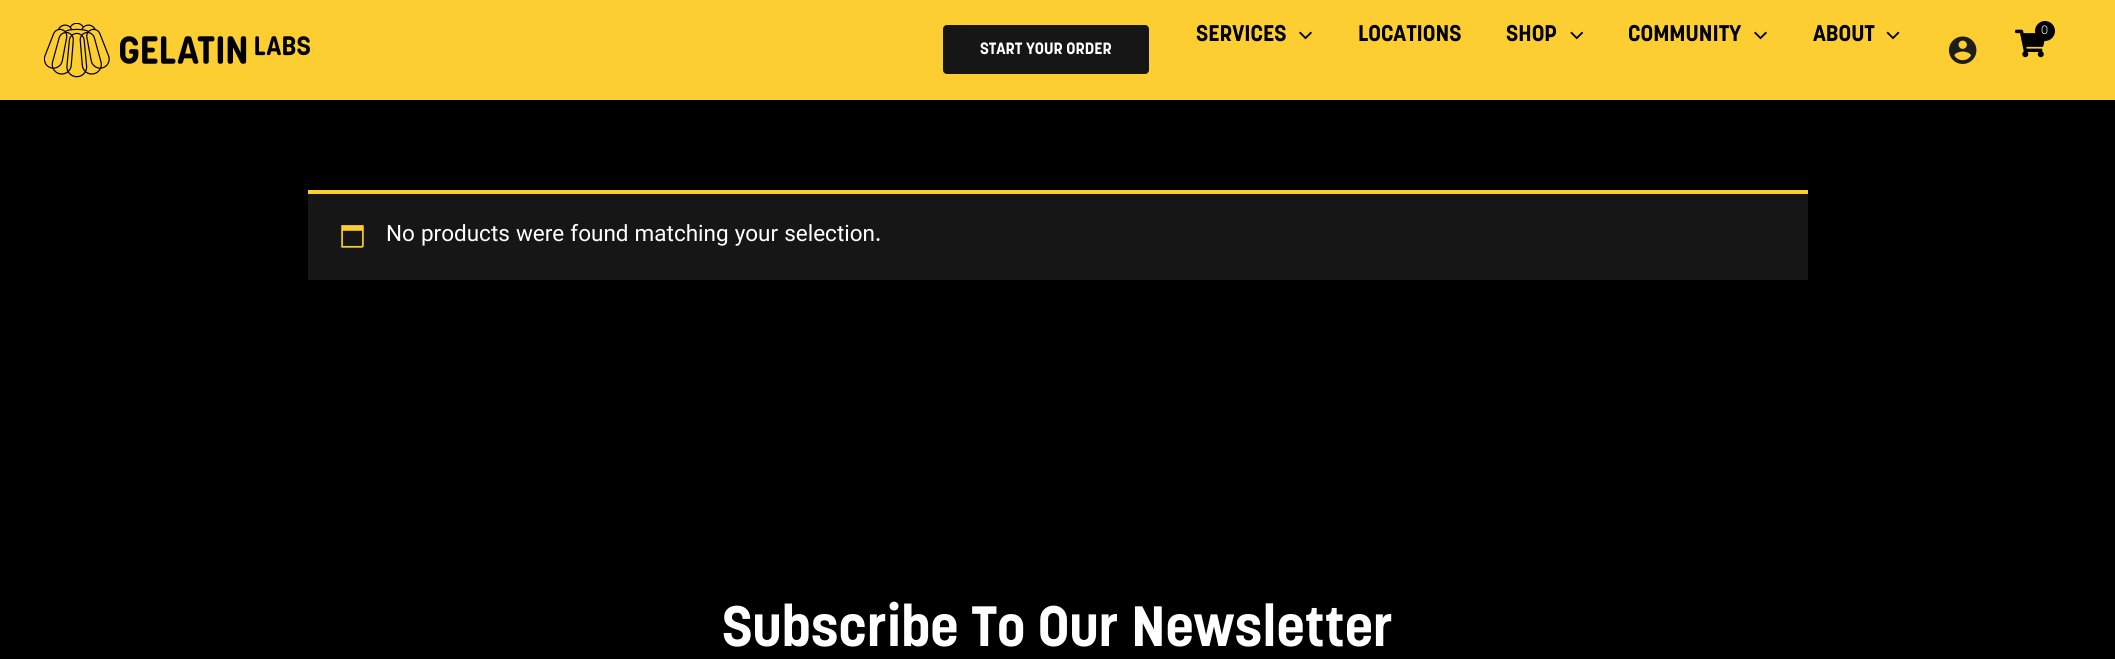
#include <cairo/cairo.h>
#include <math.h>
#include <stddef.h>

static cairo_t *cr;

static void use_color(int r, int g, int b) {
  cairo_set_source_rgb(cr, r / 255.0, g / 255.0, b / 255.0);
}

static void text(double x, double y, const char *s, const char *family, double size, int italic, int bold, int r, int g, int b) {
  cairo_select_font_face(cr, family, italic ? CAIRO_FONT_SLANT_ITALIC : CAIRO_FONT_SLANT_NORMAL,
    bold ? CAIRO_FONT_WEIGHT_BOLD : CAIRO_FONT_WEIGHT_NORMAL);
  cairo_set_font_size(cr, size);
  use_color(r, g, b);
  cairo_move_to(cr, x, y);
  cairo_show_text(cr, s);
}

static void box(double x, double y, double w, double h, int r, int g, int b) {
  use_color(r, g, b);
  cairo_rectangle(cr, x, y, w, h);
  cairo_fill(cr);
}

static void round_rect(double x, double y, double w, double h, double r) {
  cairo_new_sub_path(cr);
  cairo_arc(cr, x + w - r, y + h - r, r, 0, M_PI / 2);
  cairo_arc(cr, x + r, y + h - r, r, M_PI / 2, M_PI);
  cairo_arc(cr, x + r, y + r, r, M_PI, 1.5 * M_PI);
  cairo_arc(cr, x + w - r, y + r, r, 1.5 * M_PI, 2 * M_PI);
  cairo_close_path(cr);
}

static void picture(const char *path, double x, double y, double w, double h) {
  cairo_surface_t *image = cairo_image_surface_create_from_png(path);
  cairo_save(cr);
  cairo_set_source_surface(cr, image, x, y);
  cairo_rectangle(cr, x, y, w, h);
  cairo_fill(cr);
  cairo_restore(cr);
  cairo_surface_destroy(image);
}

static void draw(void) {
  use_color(0, 0, 0);
  cairo_paint(cr);
  box(0, 0, 2115, 100, 253, 206, 49);
  picture("img_01.png", 44, 23, 266, 55);
  picture("img_02.png", 1299, 31, 13, 9);
  picture("img_03.png", 1570, 31, 14, 9);
  picture("img_02.png", 1754, 31, 13, 9);
  picture("img_04.png", 1886, 31, 14, 9);
  picture("img_05.png", 2015, 29, 30, 29);
  use_color(0, 0, 0);
  cairo_arc(cr, 2045, 31, 10, 0, 2 * M_PI);
  cairo_fill(cr);
  use_color(21, 22, 21);
  round_rect(943, 25, 206, 49, 4);
  cairo_fill(cr);
  picture("img_06.png", 1948, 36, 29, 28);
  box(308, 194, 1500, 86, 21, 22, 21);
  box(308, 190, 1500, 4, 253, 206, 49);
  picture("img_07.png", 341, 225, 23, 23);
  text(1196, 41, "SERVICES", "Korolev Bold", 22.5, 0, 1, 0, 0, 0);
  text(1358, 41, "LOCATIONS", "Korolev Bold", 22.5, 0, 1, 0, 0, 0);
  text(1506, 41, "SHOP", "Korolev Bold", 22.5, 0, 1, 0, 0, 0);
  text(1628, 41, "COMMUNITY", "Korolev Bold", 22.5, 0, 1, 0, 0, 0);
  text(1813, 41, "ABOUT", "Korolev Bold", 22.5, 0, 1, 0, 0, 0);
  text(2041, 34, "0", "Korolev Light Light", 12, 0, 0, 255, 255, 255);
  text(980, 54, "START YOUR ORDER", "Korolev Bold", 16.25, 0, 1, 255, 255, 255);
  text(386, 241, "No products were found matching your selection.", "Vazirmatn", 22.5, 0, 0, 255, 255, 255);
  text(722, 646, "Subscribe To Our Newsletter", "Korolev Bold", 56.25, 0, 1, 255, 255, 255);
}

int main(void) {
  cairo_surface_t *surface = cairo_image_surface_create(CAIRO_FORMAT_RGB24, 2115, 659);
  cr = cairo_create(surface);
  cairo_font_options_t *options = cairo_font_options_create();
  cairo_font_options_set_hint_metrics(options, CAIRO_HINT_METRICS_OFF);
  cairo_font_options_set_hint_style(options, CAIRO_HINT_STYLE_NONE);
  cairo_set_font_options(cr, options);
  cairo_set_miter_limit(cr, 4);
  draw();
  cairo_surface_write_to_png(surface, "out.png");
  cairo_font_options_destroy(options);
  cairo_destroy(cr);
  cairo_surface_destroy(surface);
  return 0;
}
